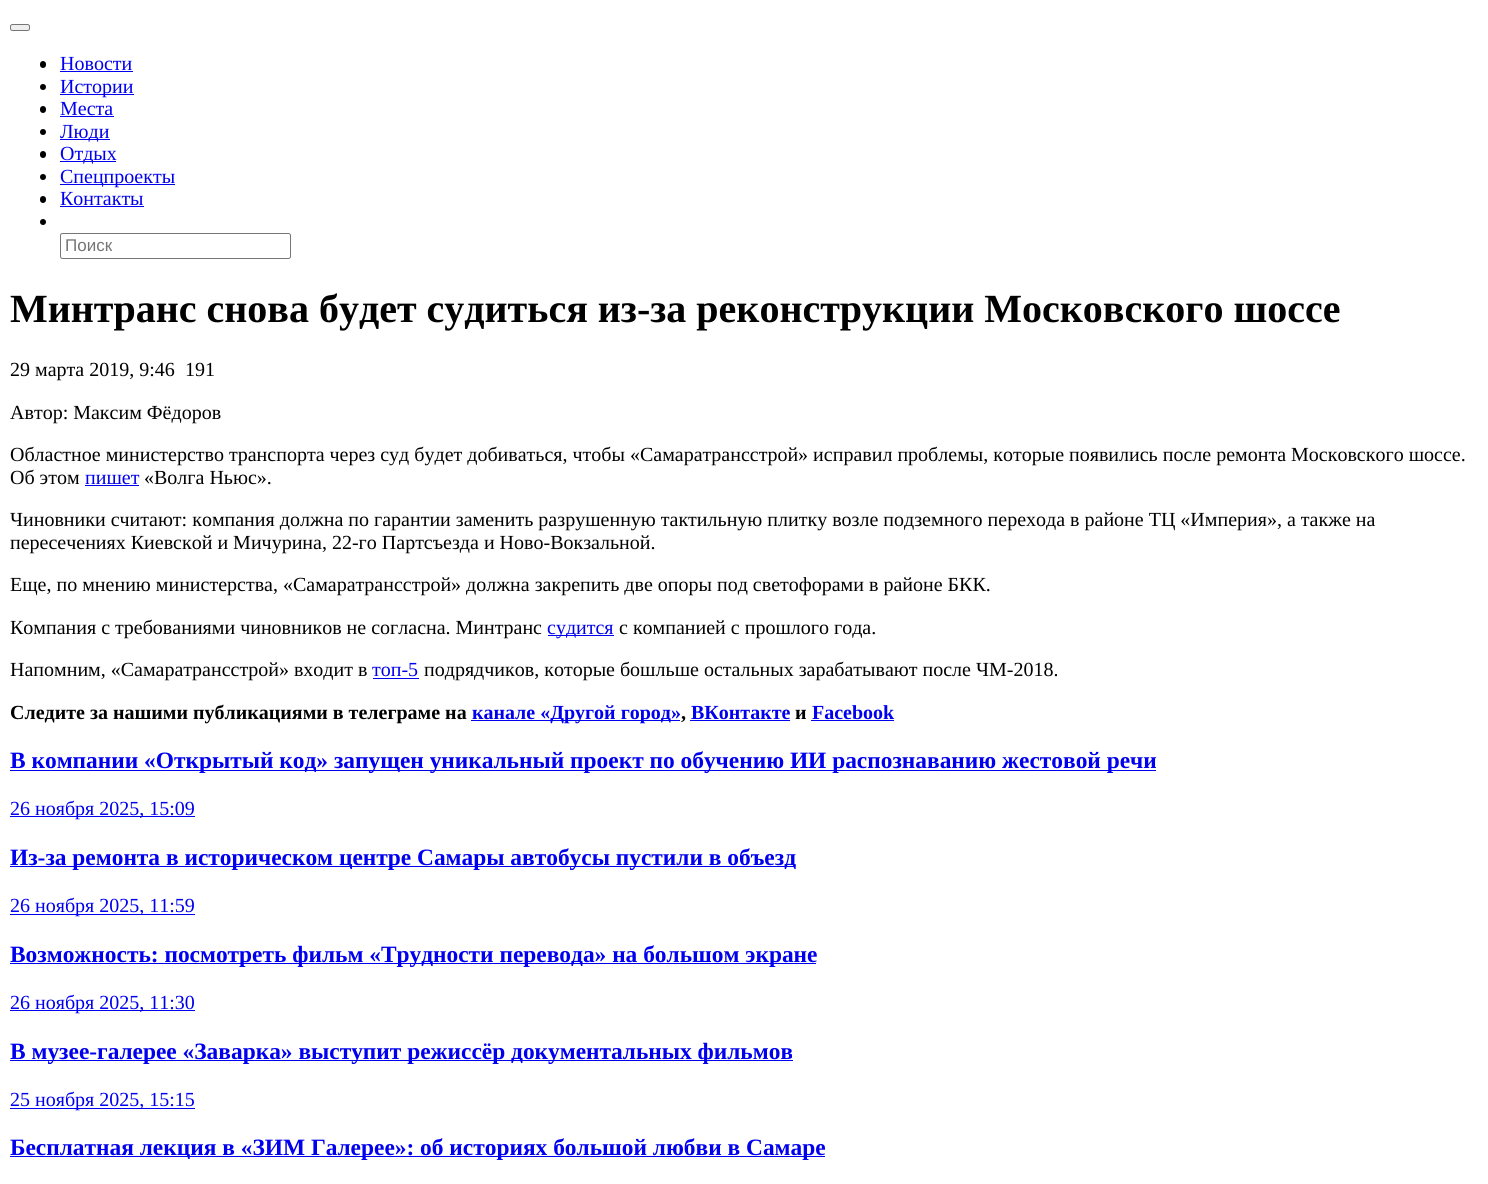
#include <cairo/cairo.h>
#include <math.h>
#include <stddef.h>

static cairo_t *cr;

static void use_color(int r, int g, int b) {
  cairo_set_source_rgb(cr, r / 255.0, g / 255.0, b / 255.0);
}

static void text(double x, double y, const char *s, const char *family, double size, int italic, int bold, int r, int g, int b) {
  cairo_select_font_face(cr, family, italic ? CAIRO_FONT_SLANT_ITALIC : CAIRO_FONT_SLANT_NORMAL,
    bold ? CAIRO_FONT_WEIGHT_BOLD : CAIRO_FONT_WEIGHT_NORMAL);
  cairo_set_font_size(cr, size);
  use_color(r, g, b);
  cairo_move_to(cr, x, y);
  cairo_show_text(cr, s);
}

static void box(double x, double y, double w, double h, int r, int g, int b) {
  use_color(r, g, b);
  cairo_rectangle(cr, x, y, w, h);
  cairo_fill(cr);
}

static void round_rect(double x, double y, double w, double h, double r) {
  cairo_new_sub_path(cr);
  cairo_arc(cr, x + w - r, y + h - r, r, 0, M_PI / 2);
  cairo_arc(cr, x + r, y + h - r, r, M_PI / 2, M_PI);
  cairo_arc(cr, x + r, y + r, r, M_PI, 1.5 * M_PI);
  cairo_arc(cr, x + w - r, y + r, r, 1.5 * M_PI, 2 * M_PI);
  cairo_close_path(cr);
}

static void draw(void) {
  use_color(255, 255, 255);
  cairo_paint(cr);
  use_color(239, 239, 239);
  round_rect(10.5, 24.5, 19, 6, 2);
  cairo_fill_preserve(cr);
  use_color(118, 118, 118);
  cairo_set_line_width(cr, 1);
  cairo_stroke(cr);
  use_color(0, 0, 0);
  round_rect(40, 61, 6, 7, 3);
  cairo_fill(cr);
  box(60, 71, 73, 1, 0, 0, 238);
  use_color(0, 0, 0);
  cairo_arc(cr, 43, 87, 3, 0, 2 * M_PI);
  cairo_fill(cr);
  box(60, 94, 74, 1, 0, 0, 238);
  use_color(0, 0, 0);
  round_rect(40, 106, 6, 7, 3);
  cairo_fill(cr);
  box(60, 116, 54, 1, 0, 0, 238);
  use_color(0, 0, 0);
  cairo_arc(cr, 43, 132, 3, 0, 2 * M_PI);
  cairo_fill(cr);
  box(60, 139, 50, 1, 0, 0, 238);
  use_color(0, 0, 0);
  round_rect(40, 151, 6, 7, 3);
  cairo_fill(cr);
  box(60, 161, 56, 1, 0, 0, 238);
  use_color(0, 0, 0);
  cairo_arc(cr, 43, 177, 3, 0, 2 * M_PI);
  cairo_fill(cr);
  box(60, 184, 115, 1, 0, 0, 238);
  use_color(0, 0, 0);
  round_rect(40, 196, 6, 7, 3);
  cairo_fill(cr);
  box(60, 206, 84, 1, 0, 0, 238);
  use_color(0, 0, 0);
  cairo_arc(cr, 43, 222, 3, 0, 2 * M_PI);
  cairo_fill(cr);
  round_rect(60.5, 233.5, 230, 25, 2);
  use_color(118, 118, 118);
  cairo_stroke(cr);
  box(85, 485, 54, 1, 0, 0, 238);
  box(548, 635, 66, 1, 0, 0, 238);
  box(373, 678, 46, 1, 0, 0, 238);
  box(471, 720, 209, 1, 0, 0, 238);
  box(690, 720, 100, 1, 0, 0, 238);
  box(811, 720, 83, 1, 0, 0, 238);
  box(10, 770, 1146, 1, 0, 0, 238);
  box(10, 816, 185, 1, 0, 0, 238);
  box(10, 866, 785, 1, 0, 0, 238);
  box(10, 914, 185, 1, 0, 0, 238);
  box(10, 963, 806, 1, 0, 0, 238);
  box(10, 1010, 185, 1, 0, 0, 238);
  box(10, 1060, 783, 1, 0, 0, 238);
  box(10, 1108, 185, 1, 0, 0, 238);
  box(10, 1156, 815, 1, 0, 0, 238);
  text(60, 70, "Новости", "Liberation Serif", 20, 0, 0, 0, 0, 238);
  text(60, 93, "Истории", "Liberation Serif", 20, 0, 0, 0, 0, 238);
  text(60, 115, "Места", "Liberation Serif", 20, 0, 0, 0, 0, 238);
  text(60, 138, "Люди", "Liberation Serif", 20, 0, 0, 0, 0, 238);
  text(60, 160, "Отдых", "Liberation Serif", 20, 0, 0, 0, 0, 238);
  text(60, 183, "Спецпроекты", "Liberation Serif", 20, 0, 0, 0, 0, 238);
  text(60, 205, "Контакты", "Liberation Serif", 20, 0, 0, 0, 0, 238);
  text(65, 251, "Поиск", "Liberation Sans", 17, 0, 0, 117, 117, 117);
  text(10, 322, "Минтранс снова будет судиться из-за реконструкции Московского шоссе", "Liberation Serif", 40, 0, 1, 0, 0, 0);
  text(10, 376, "29 марта 2019, 9:46", "Liberation Serif", 20, 0, 0, 0, 0, 0);
  text(185, 376, "191", "Liberation Serif", 20, 0, 0, 0, 0, 0);
  text(10, 419, "Автор: Максим Фёдоров", "Liberation Serif", 20, 0, 0, 0, 0, 0);
  text(10, 461, "Областное министерство транспорта через суд будет добиваться, чтобы «Самаратрансстрой» исправил проблемы, которые появились после ремонта Московского шоссе.", "Liberation Serif", 20, 0, 0, 0, 0, 0);
  text(10, 484, "Об этом", "Liberation Serif", 20, 0, 0, 0, 0, 0);
  text(85, 484, "пишет", "Liberation Serif", 20, 0, 0, 0, 0, 238);
  text(144, 484, "«Волга Ньюс».", "Liberation Serif", 20, 0, 0, 0, 0, 0);
  text(10, 526, "Чиновники считают: компания должна по гарантии заменить разрушенную тактильную плитку возле подземного перехода в районе ТЦ «Империя», а также на", "Liberation Serif", 20, 0, 0, 0, 0, 0);
  text(10, 549, "пересечениях Киевской и Мичурина, 22-го Партсъезда и Ново-Вокзальной.", "Liberation Serif", 20, 0, 0, 0, 0, 0);
  text(10, 591, "Еще, по мнению министерства, «Самаратрансстрой» должна закрепить две опоры под светофорами в районе БКК.", "Liberation Serif", 20, 0, 0, 0, 0, 0);
  text(10, 634, "Компания с требованиями чиновников не согласна. Минтранс", "Liberation Serif", 20, 0, 0, 0, 0, 0);
  text(547, 634, "судится", "Liberation Serif", 20, 0, 0, 0, 0, 238);
  text(619, 634, "с компанией с прошлого года.", "Liberation Serif", 20, 0, 0, 0, 0, 0);
  text(10, 676, "Напомним, «Самаратрансстрой» входит в", "Liberation Serif", 20, 0, 0, 0, 0, 0);
  text(372, 676, "топ-5", "Liberation Serif", 20, 0, 0, 0, 0, 238);
  text(424, 676, "подрядчиков, которые бошльше остальных зарабатывают после ЧМ-2018.", "Liberation Serif", 20, 0, 0, 0, 0, 0);
  text(10, 719, "Следите за нашими публикациями в телеграме на", "Liberation Serif", 20, 0, 1, 0, 0, 0);
  text(472, 719, "канале «Другой город»", "Liberation Serif", 20, 0, 1, 0, 0, 238);
  text(681, 719, ",", "Liberation Serif", 20, 0, 1, 0, 0, 0);
  text(691, 719, "ВКонтакте", "Liberation Serif", 20, 0, 1, 0, 0, 238);
  text(795, 719, "и", "Liberation Serif", 20, 0, 1, 0, 0, 0);
  text(812, 719, "Facebook", "Liberation Serif", 20, 0, 1, 0, 0, 238);
  text(10, 768, "В компании «Открытый код» запущен уникальный проект по обучению ИИ распознаванию жестовой речи", "Liberation Serif", 23.4, 0, 1, 0, 0, 238);
  text(10, 815, "26 ноября 2025, 15:09", "Liberation Serif", 20, 0, 0, 0, 0, 238);
  text(10, 865, "Из-за ремонта в историческом центре Самары автобусы пустили в объезд", "Liberation Serif", 23.4, 0, 1, 0, 0, 238);
  text(10, 912, "26 ноября 2025, 11:59", "Liberation Serif", 20, 0, 0, 0, 0, 238);
  text(10, 962, "Возможность: посмотреть фильм «Трудности перевода» на большом экране", "Liberation Serif", 23.4, 0, 1, 0, 0, 238);
  text(10, 1009, "26 ноября 2025, 11:30", "Liberation Serif", 20, 0, 0, 0, 0, 238);
  text(10, 1059, "В музее-галерее «Заварка» выступит режиссёр документальных фильмов", "Liberation Serif", 23.4, 0, 1, 0, 0, 238);
  text(10, 1106, "25 ноября 2025, 15:15", "Liberation Serif", 20, 0, 0, 0, 0, 238);
  text(10, 1155, "Бесплатная лекция в «ЗИМ Галерее»: об историях большой любви в Самаре", "Liberation Serif", 23.4, 0, 1, 0, 0, 238);
}

int main(void) {
  cairo_surface_t *surface = cairo_image_surface_create(CAIRO_FORMAT_RGB24, 1488, 1184);
  cr = cairo_create(surface);
  cairo_font_options_t *options = cairo_font_options_create();
  cairo_font_options_set_hint_metrics(options, CAIRO_HINT_METRICS_OFF);
  cairo_font_options_set_hint_style(options, CAIRO_HINT_STYLE_NONE);
  cairo_set_font_options(cr, options);
  cairo_set_miter_limit(cr, 4);
  draw();
  cairo_surface_write_to_png(surface, "out.png");
  cairo_font_options_destroy(options);
  cairo_destroy(cr);
  cairo_surface_destroy(surface);
  return 0;
}
